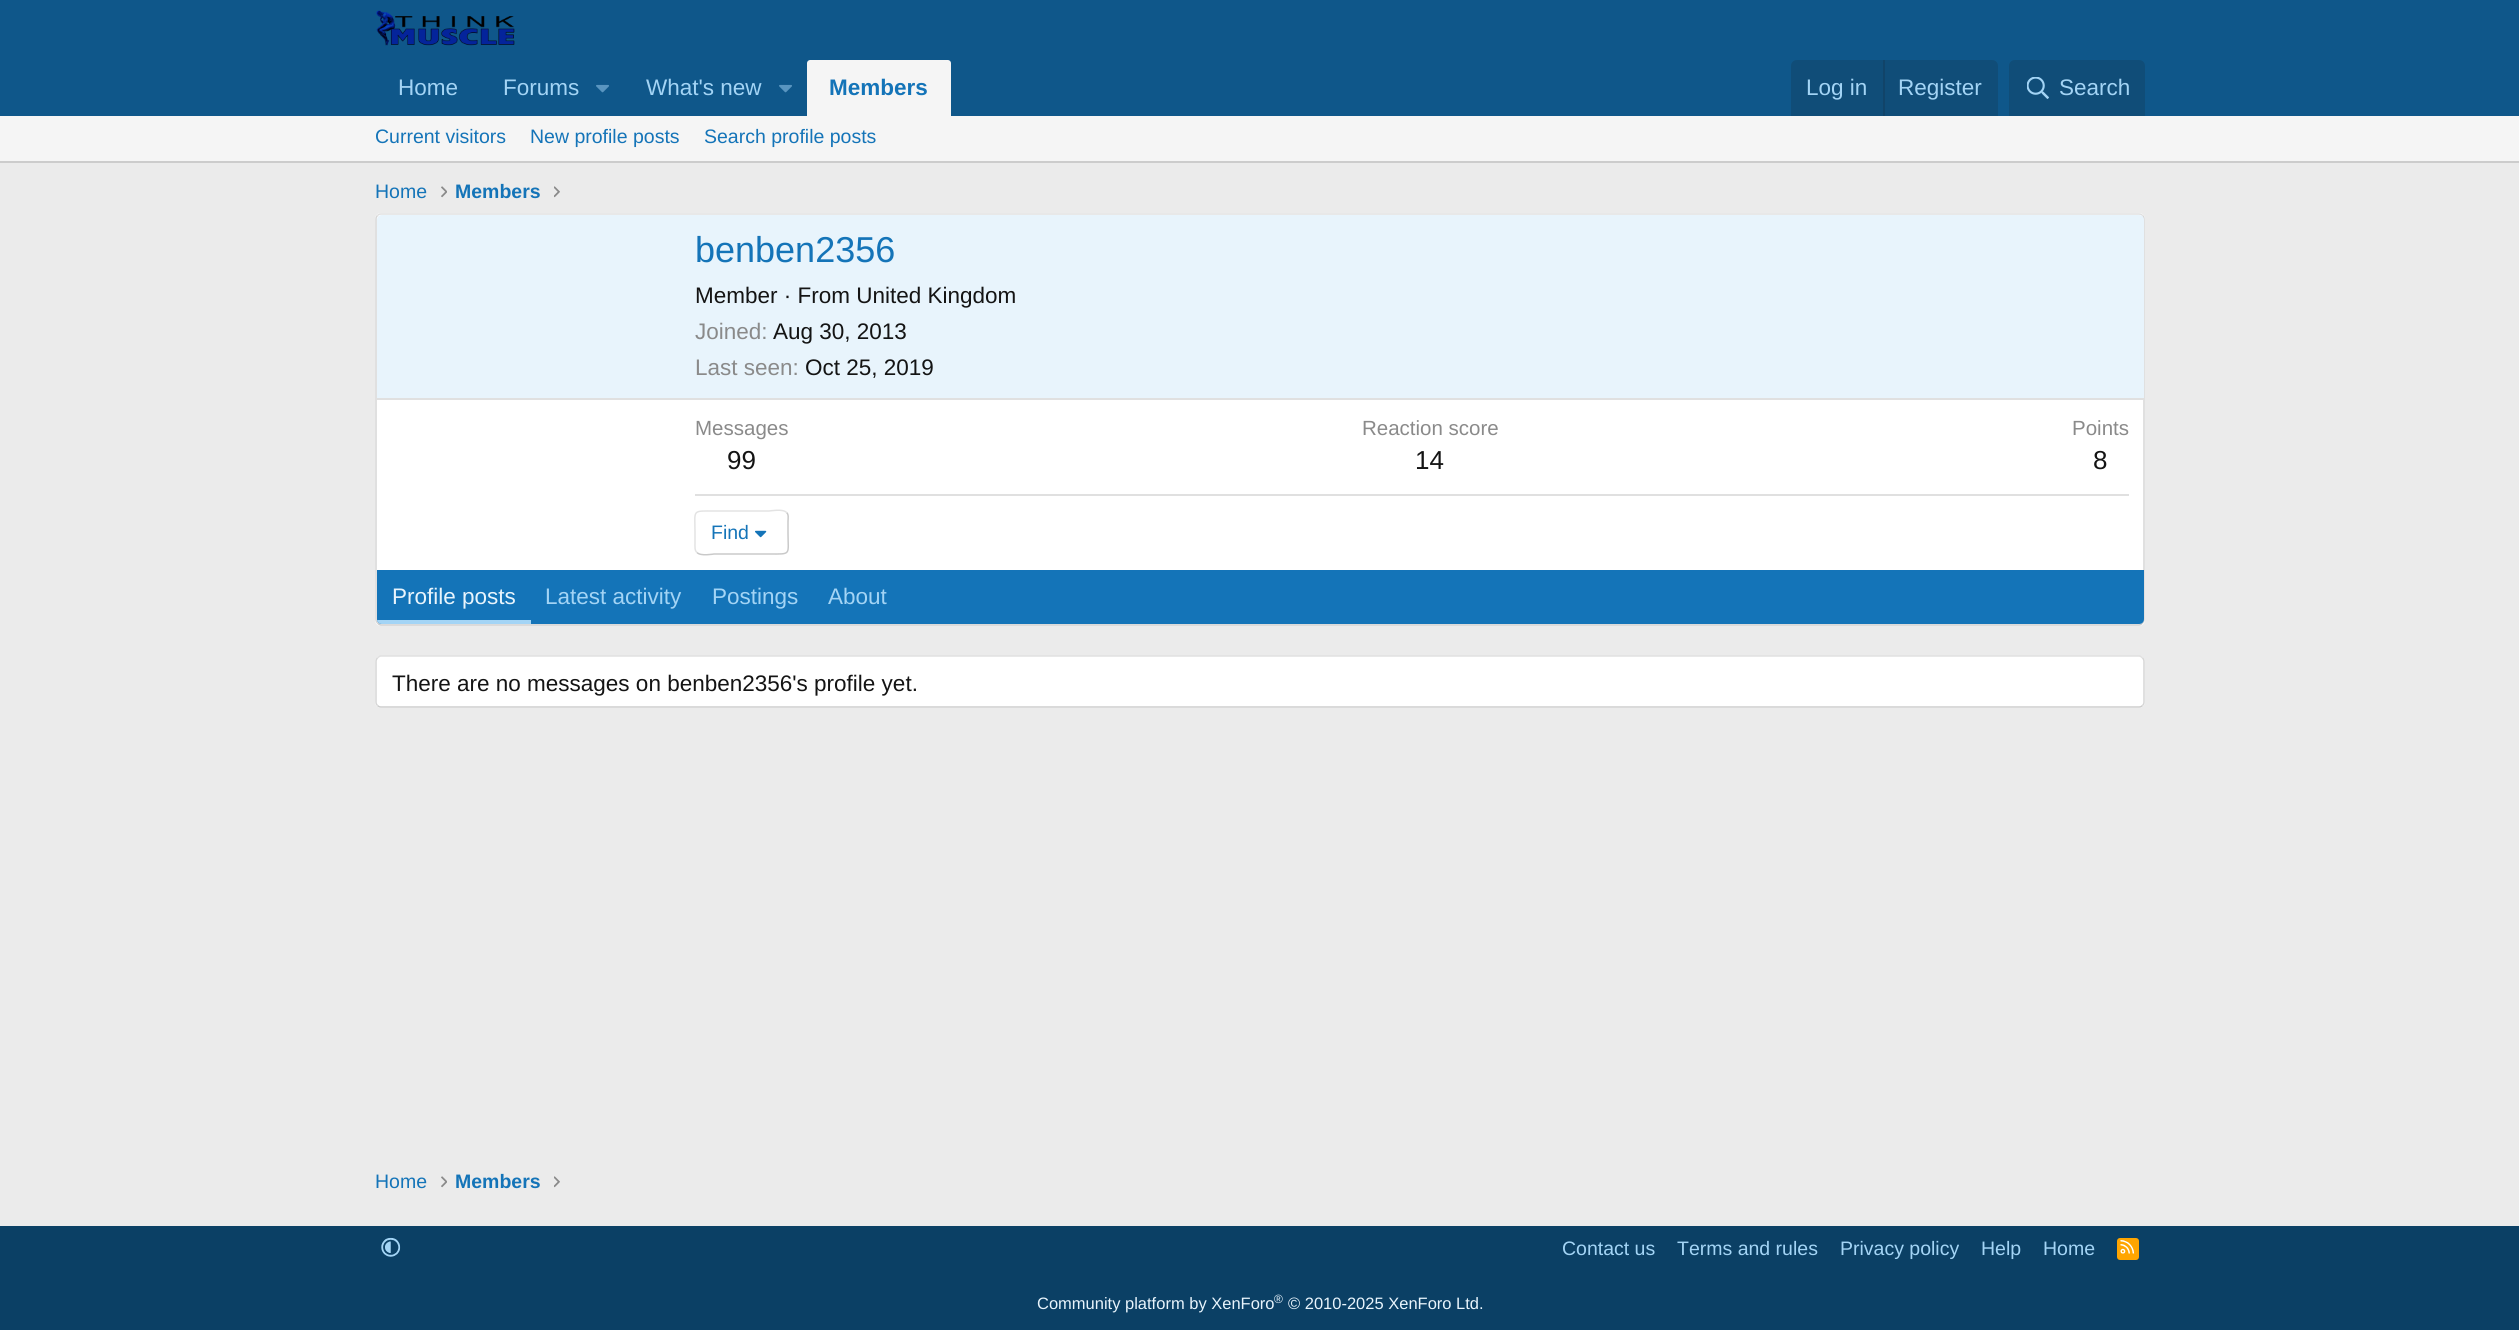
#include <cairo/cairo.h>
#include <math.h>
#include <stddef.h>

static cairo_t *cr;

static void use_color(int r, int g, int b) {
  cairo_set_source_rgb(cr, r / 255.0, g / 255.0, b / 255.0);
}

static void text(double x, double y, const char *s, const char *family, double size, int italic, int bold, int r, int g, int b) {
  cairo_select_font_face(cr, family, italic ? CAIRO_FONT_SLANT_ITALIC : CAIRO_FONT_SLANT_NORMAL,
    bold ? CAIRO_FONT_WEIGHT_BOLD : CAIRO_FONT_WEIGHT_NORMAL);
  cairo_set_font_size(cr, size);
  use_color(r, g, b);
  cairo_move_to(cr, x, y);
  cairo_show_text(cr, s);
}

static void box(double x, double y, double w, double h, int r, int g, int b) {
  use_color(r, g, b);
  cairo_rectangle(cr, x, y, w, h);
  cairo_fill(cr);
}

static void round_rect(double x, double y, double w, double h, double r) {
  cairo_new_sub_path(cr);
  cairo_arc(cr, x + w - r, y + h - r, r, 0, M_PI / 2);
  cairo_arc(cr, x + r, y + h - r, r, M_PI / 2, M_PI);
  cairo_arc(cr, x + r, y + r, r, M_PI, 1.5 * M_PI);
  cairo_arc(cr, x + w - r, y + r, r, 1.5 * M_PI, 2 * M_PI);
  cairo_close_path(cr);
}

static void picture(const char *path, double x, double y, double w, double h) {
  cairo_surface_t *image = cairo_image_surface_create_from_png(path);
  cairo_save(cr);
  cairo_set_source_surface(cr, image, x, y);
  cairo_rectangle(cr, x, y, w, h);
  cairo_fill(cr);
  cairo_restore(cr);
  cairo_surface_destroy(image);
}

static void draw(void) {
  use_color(235, 235, 235);
  cairo_paint(cr);
  box(0, 0, 2519, 116, 15, 87, 138);
  picture("img_01.png", 376, 10, 139, 36);
  picture("img_02.png", 596, 84, 13, 9);
  picture("img_02.png", 779, 84, 13, 9);
  use_color(245, 245, 245);
  cairo_new_path(cr);
  cairo_move_to(cr, 810, 60);
  cairo_line_to(cr, 948, 60);
  cairo_curve_to(cr, 949.5, 60, 951, 61.5, 951, 63);
  cairo_line_to(cr, 951, 116);
  cairo_line_to(cr, 807, 116);
  cairo_line_to(cr, 807, 63);
  cairo_curve_to(cr, 807, 61.5, 808.5, 60, 810, 60);
  cairo_close_path(cr);
  cairo_fill(cr);
  use_color(16, 77, 120);
  cairo_new_path(cr);
  cairo_move_to(cr, 1797, 60);
  cairo_line_to(cr, 1992, 60);
  cairo_curve_to(cr, 1995.5, 60, 1998, 62.5, 1998, 66);
  cairo_line_to(cr, 1998, 116);
  cairo_line_to(cr, 1791, 116);
  cairo_line_to(cr, 1791, 66);
  cairo_curve_to(cr, 1791, 62.5, 1793.5, 60, 1797, 60);
  cairo_close_path(cr);
  cairo_fill(cr);
  box(1883, 60, 2, 56, 17, 68, 105);
  use_color(16, 77, 120);
  cairo_new_path(cr);
  cairo_move_to(cr, 2015, 60);
  cairo_line_to(cr, 2139, 60);
  cairo_curve_to(cr, 2142.5, 60, 2145, 62.5, 2145, 66);
  cairo_line_to(cr, 2145, 116);
  cairo_line_to(cr, 2009, 116);
  cairo_line_to(cr, 2009, 66);
  cairo_curve_to(cr, 2009, 62.5, 2011.5, 60, 2015, 60);
  cairo_close_path(cr);
  cairo_fill(cr);
  picture("img_03.png", 2027, 77, 22, 22);
  box(0, 116, 2519, 45, 245, 245, 245);
  box(0, 161, 2519, 2, 204, 204, 204);
  picture("img_04.png", 441, 186, 6, 12);
  picture("img_05.png", 554, 186, 6, 12);
  use_color(255, 255, 255);
  round_rect(375, 213, 1770, 413, 6);
  cairo_fill(cr);
  cairo_new_path(cr);
  cairo_move_to(cr, 377.5, 215.5);
  cairo_curve_to(cr, 378.5, 214.5, 379.5, 214, 381, 214);
  cairo_line_to(cr, 2139, 214);
  cairo_curve_to(cr, 2140.5, 214, 2141.5, 214.5, 2142.5, 215.5);
  use_color(224, 224, 224);
  cairo_set_line_width(cr, 1.5);
  cairo_stroke(cr);
  cairo_new_path(cr);
  cairo_move_to(cr, 2142.5, 215.5);
  cairo_curve_to(cr, 2143.5, 216.5, 2144, 217.5, 2144, 219);
  cairo_line_to(cr, 2144, 619.5);
  cairo_curve_to(cr, 2144, 621, 2143.5, 622, 2142.5, 623);
  use_color(214, 214, 214);
  cairo_stroke(cr);
  cairo_new_path(cr);
  cairo_move_to(cr, 2142.5, 623);
  cairo_curve_to(cr, 2141.5, 624, 2140.5, 625, 2139, 625);
  cairo_line_to(cr, 381, 625);
  cairo_curve_to(cr, 379.5, 625, 378.5, 624, 377.5, 623);
  use_color(204, 204, 204);
  cairo_stroke(cr);
  cairo_new_path(cr);
  cairo_move_to(cr, 377.5, 623);
  cairo_curve_to(cr, 376.5, 622, 376, 621, 376, 619.5);
  cairo_line_to(cr, 376, 219);
  cairo_curve_to(cr, 376, 217.5, 376.5, 216.5, 377.5, 215.5);
  use_color(214, 214, 214);
  cairo_stroke(cr);
  use_color(232, 244, 252);
  cairo_new_path(cr);
  cairo_move_to(cr, 382, 215);
  cairo_line_to(cr, 2139, 215);
  cairo_curve_to(cr, 2142, 215, 2144, 217, 2144, 220);
  cairo_line_to(cr, 2144, 399);
  cairo_line_to(cr, 377, 399);
  cairo_line_to(cr, 377, 220);
  cairo_curve_to(cr, 377, 217, 379, 215, 382, 215);
  cairo_close_path(cr);
  cairo_fill(cr);
  box(377, 398, 1767, 2, 224, 224, 224);
  box(695, 494, 1434, 2, 224, 224, 224);
  cairo_new_path(cr);
  cairo_move_to(cr, 786.5, 512.5);
  cairo_curve_to(cr, 789, 514.5, 788, 518.5, 788, 521.5);
  cairo_line_to(cr, 788, 532.5);
  cairo_curve_to(cr, 788, 555.5, 792, 554, 769, 554);
  cairo_line_to(cr, 714, 554);
  cairo_curve_to(cr, 713.5, 554, 700.5, 556.5, 697, 552.5);
  use_color(201, 201, 201);
  cairo_stroke(cr);
  cairo_new_path(cr);
  cairo_move_to(cr, 697, 552.5);
  cairo_curve_to(cr, 694.5, 550.5, 695, 546.5, 695, 543.5);
  cairo_line_to(cr, 695, 532.5);
  cairo_curve_to(cr, 695, 509.5, 691.5, 511, 714, 511);
  cairo_line_to(cr, 769, 511);
  cairo_curve_to(cr, 770, 511, 783, 508.5, 786.5, 512.5);
  use_color(227, 227, 227);
  cairo_stroke(cr);
  picture("img_06.png", 755, 530, 12, 8);
  use_color(20, 116, 184);
  cairo_new_path(cr);
  cairo_move_to(cr, 377, 570);
  cairo_line_to(cr, 2144, 570);
  cairo_line_to(cr, 2144, 619);
  cairo_curve_to(cr, 2144, 622, 2142, 624, 2139, 624);
  cairo_line_to(cr, 382, 624);
  cairo_curve_to(cr, 379, 624, 377, 622, 377, 619);
  cairo_close_path(cr);
  cairo_fill(cr);
  cairo_save(cr);
  cairo_new_path(cr);
  cairo_move_to(cr, 377, 570);
  cairo_line_to(cr, 2144, 570);
  cairo_line_to(cr, 2144, 619);
  cairo_curve_to(cr, 2144, 622, 2142, 624, 2139, 624);
  cairo_line_to(cr, 382, 624);
  cairo_curve_to(cr, 379, 624, 377, 622, 377, 619);
  cairo_close_path(cr);
  cairo_clip(cr);
  box(377, 620, 154, 4, 163, 212, 245);
  cairo_restore(cr);
  use_color(255, 255, 255);
  round_rect(375, 656, 1770, 52, 6);
  cairo_fill(cr);
  cairo_new_path(cr);
  cairo_move_to(cr, 377.5, 658);
  cairo_curve_to(cr, 378.5, 657, 379.5, 656, 381, 656);
  cairo_line_to(cr, 2139, 656);
  cairo_curve_to(cr, 2140.5, 656, 2141.5, 657, 2142.5, 658);
  use_color(224, 224, 224);
  cairo_stroke(cr);
  cairo_new_path(cr);
  cairo_move_to(cr, 2142.5, 658);
  cairo_curve_to(cr, 2143.5, 659, 2144, 660, 2144, 661.5);
  cairo_line_to(cr, 2144, 702);
  cairo_curve_to(cr, 2144, 703.5, 2143.5, 704.5, 2142.5, 705.5);
  use_color(214, 214, 214);
  cairo_stroke(cr);
  cairo_new_path(cr);
  cairo_move_to(cr, 2142.5, 705.5);
  cairo_curve_to(cr, 2141.5, 706.5, 2140.5, 707, 2139, 707);
  cairo_line_to(cr, 381, 707);
  cairo_curve_to(cr, 379.5, 707, 378.5, 706.5, 377.5, 705.5);
  use_color(204, 204, 204);
  cairo_stroke(cr);
  cairo_new_path(cr);
  cairo_move_to(cr, 377.5, 705.5);
  cairo_curve_to(cr, 376.5, 704.5, 376, 703.5, 376, 702);
  cairo_line_to(cr, 376, 661.5);
  cairo_curve_to(cr, 376, 660, 376.5, 659, 377.5, 658);
  use_color(214, 214, 214);
  cairo_stroke(cr);
  picture("img_04.png", 441, 1176, 6, 12);
  picture("img_05.png", 554, 1176, 6, 12);
  box(0, 1226, 2519, 104, 11, 64, 101);
  picture("img_07.png", 381, 1237, 20, 20);
  use_color(255, 165, 0);
  round_rect(2117, 1238, 22, 22, 3);
  cairo_fill(cr);
  picture("img_08.png", 2120, 1240, 15, 14);
  text(398, 95, "Home", "Liberation Sans", 22.5, 0, 0, 163, 212, 245);
  text(503, 95, "Forums", "Liberation Sans", 22.5, 0, 0, 163, 212, 245);
  text(646, 95, "What's new", "Liberation Sans", 22.5, 0, 0, 163, 212, 245);
  text(829, 95, "Members", "Liberation Sans", 22.5, 0, 1, 20, 116, 184);
  text(1806, 95, "Log in", "Liberation Sans", 22.5, 0, 0, 163, 212, 245);
  text(1898, 95, "Register", "Liberation Sans", 22.5, 0, 0, 163, 212, 245);
  text(2059, 95, "Search", "Liberation Sans", 22.5, 0, 0, 163, 212, 245);
  text(375, 143, "Current visitors", "Liberation Sans", 19.5, 0, 0, 20, 116, 184);
  text(530, 143, "New profile posts", "Liberation Sans", 19.5, 0, 0, 20, 116, 184);
  text(704, 143, "Search profile posts", "Liberation Sans", 19.5, 0, 0, 20, 116, 184);
  text(375, 198, "Home", "Liberation Sans", 19.5, 0, 0, 20, 116, 184);
  text(455, 198, "Members", "Liberation Sans", 19.5, 0, 1, 20, 116, 184);
  text(695, 262, "benben2356", "Liberation Sans", 36, 0, 0, 20, 116, 184);
  text(695, 303, "Member · From United Kingdom", "Liberation Sans", 22.5, 0, 0, 20, 20, 20);
  text(695, 339, "Joined:", "Liberation Sans", 22.5, 0, 0, 138, 138, 138);
  text(773, 339, "Aug 30, 2013", "Liberation Sans", 22.5, 0, 0, 20, 20, 20);
  text(695, 375, "Last seen:", "Liberation Sans", 22.5, 0, 0, 138, 138, 138);
  text(805, 375, "Oct 25, 2019", "Liberation Sans", 22.5, 0, 0, 20, 20, 20);
  text(695, 435, "Messages", "Liberation Sans", 20.5, 0, 0, 138, 138, 138);
  text(727, 469, "99", "Liberation Sans", 26, 0, 0, 20, 20, 20);
  text(1362, 435, "Reaction score", "Liberation Sans", 20.5, 0, 0, 138, 138, 138);
  text(1415, 469, "14", "Liberation Sans", 26, 0, 0, 20, 20, 20);
  text(2072, 435, "Points", "Liberation Sans", 20.5, 0, 0, 138, 138, 138);
  text(2093, 469, "8", "Liberation Sans", 26, 0, 0, 20, 20, 20);
  text(711, 539, "Find", "Liberation Sans", 19.5, 0, 0, 20, 116, 184);
  text(392, 604, "Profile posts", "Liberation Sans", 22.5, 0, 0, 232, 244, 252);
  text(545, 604, "Latest activity", "Liberation Sans", 22.5, 0, 0, 163, 212, 245);
  text(712, 604, "Postings", "Liberation Sans", 22.5, 0, 0, 163, 212, 245);
  text(828, 604, "About", "Liberation Sans", 22.5, 0, 0, 163, 212, 245);
  text(392, 691, "There are no messages on benben2356's profile yet.", "Liberation Sans", 22.5, 0, 0, 20, 20, 20);
  text(375, 1188, "Home", "Liberation Sans", 19.5, 0, 0, 20, 116, 184);
  text(455, 1188, "Members", "Liberation Sans", 19.5, 0, 1, 20, 116, 184);
  text(1562, 1255, "Contact us", "Liberation Sans", 19.5, 0, 0, 163, 212, 245);
  text(1677, 1255, "Terms and rules", "Liberation Sans", 19.5, 0, 0, 163, 212, 245);
  text(1840, 1255, "Privacy policy", "Liberation Sans", 19.5, 0, 0, 163, 212, 245);
  text(1981, 1255, "Help", "Liberation Sans", 19.5, 0, 0, 163, 212, 245);
  text(2043, 1255, "Home", "Liberation Sans", 19.5, 0, 0, 163, 212, 245);
  text(1037, 1309, "Community platform by XenForo", "Liberation Sans", 16.5, 0, 0, 232, 244, 252);
  text(1274, 1303, "®", "Liberation Sans", 12, 0, 0, 232, 244, 252);
  text(1288, 1309, "© 2010-2025 XenForo Ltd.", "Liberation Sans", 16.5, 0, 0, 232, 244, 252);
}

int main(void) {
  cairo_surface_t *surface = cairo_image_surface_create(CAIRO_FORMAT_RGB24, 2519, 1330);
  cr = cairo_create(surface);
  cairo_font_options_t *options = cairo_font_options_create();
  cairo_font_options_set_hint_metrics(options, CAIRO_HINT_METRICS_OFF);
  cairo_font_options_set_hint_style(options, CAIRO_HINT_STYLE_NONE);
  cairo_set_font_options(cr, options);
  cairo_set_miter_limit(cr, 4);
  draw();
  cairo_surface_write_to_png(surface, "out.png");
  cairo_font_options_destroy(options);
  cairo_destroy(cr);
  cairo_surface_destroy(surface);
  return 0;
}
